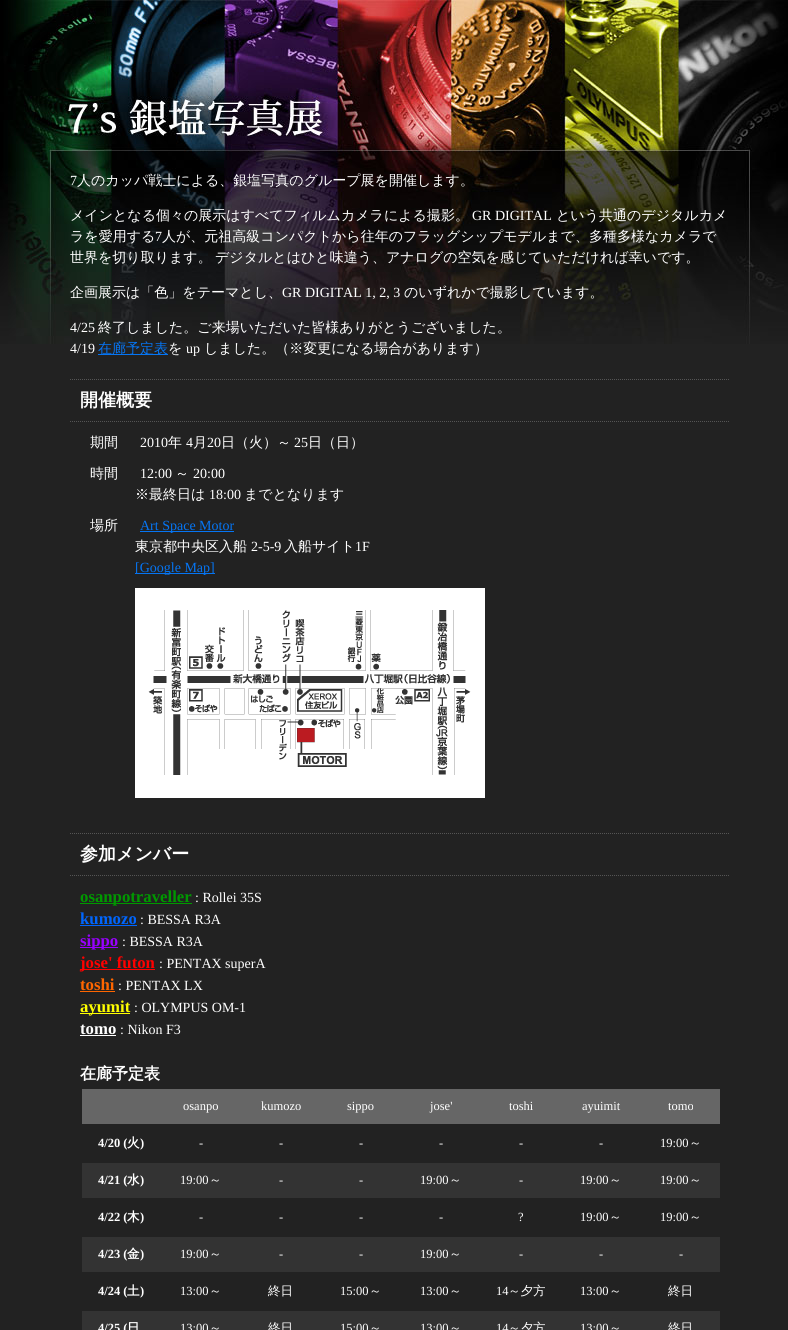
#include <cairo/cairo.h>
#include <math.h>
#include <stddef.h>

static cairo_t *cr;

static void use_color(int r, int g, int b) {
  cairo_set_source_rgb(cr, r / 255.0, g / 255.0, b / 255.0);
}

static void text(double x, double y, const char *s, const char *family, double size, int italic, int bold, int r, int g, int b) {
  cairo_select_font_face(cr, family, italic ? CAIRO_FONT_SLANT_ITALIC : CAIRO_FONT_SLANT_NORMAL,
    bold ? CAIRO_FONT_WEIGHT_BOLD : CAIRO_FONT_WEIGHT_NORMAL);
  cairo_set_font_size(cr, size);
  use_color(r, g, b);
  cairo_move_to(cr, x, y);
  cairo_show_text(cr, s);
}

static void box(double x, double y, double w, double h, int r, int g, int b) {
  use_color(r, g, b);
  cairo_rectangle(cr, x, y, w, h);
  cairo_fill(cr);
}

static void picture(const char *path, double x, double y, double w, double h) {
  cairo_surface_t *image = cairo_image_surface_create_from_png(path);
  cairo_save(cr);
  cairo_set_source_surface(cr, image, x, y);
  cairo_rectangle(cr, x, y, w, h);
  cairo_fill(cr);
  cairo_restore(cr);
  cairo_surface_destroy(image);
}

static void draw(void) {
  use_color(34, 34, 34);
  cairo_paint(cr);
  picture("img_01.png", 0, 0, 788, 344);
  box(98, 354, 70, 1, 5, 117, 244);
  cairo_new_path(cr);
  cairo_move_to(cr, 70, 379.5);
  cairo_line_to(cr, 730, 379.5);
  use_color(85, 85, 85);
  cairo_set_line_width(cr, 1);
  cairo_set_dash(cr, (double[]){1, 1}, 2, 0);
  cairo_stroke(cr);
  cairo_new_path(cr);
  cairo_move_to(cr, 70, 421.5);
  cairo_line_to(cr, 730, 421.5);
  cairo_stroke(cr);
  box(140, 531, 94, 1, 5, 117, 244);
  box(135, 573, 80, 1, 5, 117, 244);
  picture("img_02.png", 135, 588, 350, 210);
  cairo_new_path(cr);
  cairo_move_to(cr, 70, 833.5);
  cairo_line_to(cr, 730, 833.5);
  use_color(85, 85, 85);
  cairo_stroke(cr);
  cairo_new_path(cr);
  cairo_move_to(cr, 70, 875.5);
  cairo_line_to(cr, 730, 875.5);
  cairo_stroke(cr);
  box(80, 903, 112, 1, 0, 153, 0);
  box(80, 925, 57, 1, 0, 102, 255);
  box(80, 947, 38, 1, 153, 0, 255);
  box(80, 969, 75, 1, 255, 0, 0);
  box(80, 991, 35, 1, 255, 102, 0);
  box(80, 1013, 50, 1, 255, 255, 0);
  box(80, 1035, 36, 1, 255, 255, 255);
  box(82, 1089, 638, 35, 102, 102, 102);
  box(82, 1163, 638, 35, 51, 51, 51);
  box(82, 1237, 638, 35, 51, 51, 51);
  box(82, 1311, 638, 19, 51, 51, 51);
  text(70, 185, "7", "Liberation Serif", 14, 0, 0, 255, 255, 255);
  text(77, 185, "人のカッパ戦士による、銀塩写真のグループ展を開催します。", "WenQuanYi Zen Hei Medium", 14, 0, 0, 255, 255, 255);
  text(70, 220, "メインとなる個々の展示はすべてフィルムカメラによる撮影。", "WenQuanYi Zen Hei Medium", 14, 0, 0, 255, 255, 255);
  text(472, 220, "GR DIGITAL", "Liberation Serif", 14, 0, 0, 255, 255, 255);
  text(556, 220, "という共通のデジタルカメ", "WenQuanYi Zen Hei Medium", 14, 0, 0, 255, 255, 255);
  text(70, 241, "ラを愛用する", "WenQuanYi Zen Hei Medium", 14, 0, 0, 255, 255, 255);
  text(155, 241, "7", "Liberation Serif", 14, 0, 0, 255, 255, 255);
  text(162, 241, "人が、元祖高級コンパクトから往年のフラッグシップモデルまで、多種多様なカメラで", "WenQuanYi Zen Hei Medium", 14, 0, 0, 255, 255, 255);
  text(70, 262, "世界を切り取ります。", "WenQuanYi Zen Hei Medium", 14, 0, 0, 255, 255, 255);
  text(215, 262, "デジタルとはひと味違う、アナログの空気を感じていただければ幸いです。", "WenQuanYi Zen Hei Medium", 14, 0, 0, 255, 255, 255);
  text(70, 297, "企画展示は「色」をテーマとし、", "WenQuanYi Zen Hei Medium", 14, 0, 0, 255, 255, 255);
  text(282, 297, "GR DIGITAL 1, 2, 3", "Liberation Serif", 14, 0, 0, 255, 255, 255);
  text(404, 297, "のいずれかで撮影しています。", "WenQuanYi Zen Hei Medium", 14, 0, 0, 255, 255, 255);
  text(70, 332, "4/25", "Liberation Serif", 14, 0, 0, 255, 255, 255);
  text(98, 332, "終了しました。ご来場いただいた皆様ありがとうございました。", "WenQuanYi Zen Hei Medium", 14, 0, 0, 255, 255, 255);
  text(70, 353, "4/19", "Liberation Serif", 14, 0, 0, 255, 255, 255);
  text(98, 353, "在廊予定表", "WenQuanYi Zen Hei Medium", 14, 0, 0, 5, 117, 244);
  text(168, 353, "を", "WenQuanYi Zen Hei Medium", 14, 0, 0, 255, 255, 255);
  text(186, 353, "up", "Liberation Serif", 14, 0, 0, 255, 255, 255);
  text(204, 353, "しました。（※変更になる場合があります）", "WenQuanYi Zen Hei Medium", 14, 0, 0, 255, 255, 255);
  text(80, 406, "開催概要", "WenQuanYi Zen Hei", 18, 0, 1, 255, 255, 255);
  text(90, 447, "期間", "WenQuanYi Zen Hei Medium", 14, 0, 0, 255, 255, 255);
  text(140, 447, "2010", "Liberation Serif", 14, 0, 0, 255, 255, 255);
  text(168, 447, "年", "WenQuanYi Zen Hei Medium", 14, 0, 0, 255, 255, 255);
  text(186, 447, "4", "Liberation Serif", 14, 0, 0, 255, 255, 255);
  text(193, 447, "月", "WenQuanYi Zen Hei Medium", 14, 0, 0, 255, 255, 255);
  text(207, 447, "20", "Liberation Serif", 14, 0, 0, 255, 255, 255);
  text(221, 447, "日（火）～", "WenQuanYi Zen Hei Medium", 14, 0, 0, 255, 255, 255);
  text(294, 447, "25", "Liberation Serif", 14, 0, 0, 255, 255, 255);
  text(308, 447, "日（日）", "WenQuanYi Zen Hei Medium", 14, 0, 0, 255, 255, 255);
  text(90, 478, "時間", "WenQuanYi Zen Hei Medium", 14, 0, 0, 255, 255, 255);
  text(140, 478, "12:00", "Liberation Serif", 14, 0, 0, 255, 255, 255);
  text(175, 478, "～", "WenQuanYi Zen Hei Medium", 14, 0, 0, 255, 255, 255);
  text(193, 478, "20:00", "Liberation Serif", 14, 0, 0, 255, 255, 255);
  text(135, 499, "※最終日は", "WenQuanYi Zen Hei Medium", 14, 0, 0, 255, 255, 255);
  text(209, 499, "18:00", "Liberation Serif", 14, 0, 0, 255, 255, 255);
  text(244, 499, "までとなります", "WenQuanYi Zen Hei Medium", 14, 0, 0, 255, 255, 255);
  text(90, 530, "場所", "WenQuanYi Zen Hei Medium", 14, 0, 0, 255, 255, 255);
  text(140, 530, "Art Space Motor", "Liberation Serif", 14, 0, 0, 5, 117, 244);
  text(135, 551, "東京都中央区入船", "WenQuanYi Zen Hei Medium", 14, 0, 0, 255, 255, 255);
  text(251, 551, "2-5-9", "Liberation Serif", 14, 0, 0, 255, 255, 255);
  text(284, 551, "入船サイト", "WenQuanYi Zen Hei Medium", 14, 0, 0, 255, 255, 255);
  text(355, 551, "1F", "Liberation Serif", 14, 0, 0, 255, 255, 255);
  text(135, 572, "[Google Map]", "Liberation Serif", 14, 0, 0, 5, 117, 244);
  text(80, 860, "参加メンバー", "WenQuanYi Zen Hei", 18, 0, 1, 255, 255, 255);
  text(80, 902, "osanpotraveller", "Liberation Serif", 16.75, 0, 1, 0, 153, 0);
  text(195, 902, ": Rollei 35S", "Liberation Serif", 14, 0, 0, 255, 255, 255);
  text(80, 924, "kumozo", "Liberation Serif", 16.75, 0, 1, 0, 102, 255);
  text(140, 924, ": BESSA R3A", "Liberation Serif", 14, 0, 0, 255, 255, 255);
  text(80, 946, "sippo", "Liberation Serif", 16.75, 0, 1, 153, 0, 255);
  text(122, 946, ": BESSA R3A", "Liberation Serif", 14, 0, 0, 255, 255, 255);
  text(80, 968, "jose' futon", "Liberation Serif", 16.75, 0, 1, 255, 0, 0);
  text(159, 968, ": PENTAX superA", "Liberation Serif", 14, 0, 0, 255, 255, 255);
  text(80, 990, "toshi", "Liberation Serif", 16.75, 0, 1, 255, 102, 0);
  text(118, 990, ": PENTAX LX", "Liberation Serif", 14, 0, 0, 255, 255, 255);
  text(80, 1012, "ayumit", "Liberation Serif", 16.75, 0, 1, 255, 255, 0);
  text(134, 1012, ": OLYMPUS OM-1", "Liberation Serif", 14, 0, 0, 255, 255, 255);
  text(80, 1034, "tomo", "Liberation Serif", 16.75, 0, 1, 255, 255, 255);
  text(120, 1034, ": Nikon F3", "Liberation Serif", 14, 0, 0, 255, 255, 255);
  text(80, 1079, "在廊予定表", "WenQuanYi Zen Hei", 16, 0, 1, 255, 255, 255);
  text(183, 1110, "osanpo", "Liberation Serif", 12.5, 0, 0, 255, 255, 255);
  text(261, 1110, "kumozo", "Liberation Serif", 12.5, 0, 0, 255, 255, 255);
  text(347, 1110, "sippo", "Liberation Serif", 12.5, 0, 0, 255, 255, 255);
  text(430, 1110, "jose'", "Liberation Serif", 12.5, 0, 0, 255, 255, 255);
  text(509, 1110, "toshi", "Liberation Serif", 12.5, 0, 0, 255, 255, 255);
  text(582, 1110, "ayuimit", "Liberation Serif", 12.5, 0, 0, 255, 255, 255);
  text(668, 1110, "tomo", "Liberation Serif", 12.5, 0, 0, 255, 255, 255);
  text(98, 1147, "4/20 (", "Liberation Serif", 12.5, 0, 1, 255, 255, 255);
  text(127, 1147, "火", "WenQuanYi Zen Hei", 12.5, 0, 1, 255, 255, 255);
  text(140, 1147, ")", "Liberation Serif", 12.5, 0, 1, 255, 255, 255);
  text(199, 1147, "-", "Liberation Serif", 12.5, 0, 0, 255, 255, 255);
  text(279, 1147, "-", "Liberation Serif", 12.5, 0, 0, 255, 255, 255);
  text(359, 1147, "-", "Liberation Serif", 12.5, 0, 0, 255, 255, 255);
  text(439, 1147, "-", "Liberation Serif", 12.5, 0, 0, 255, 255, 255);
  text(519, 1147, "-", "Liberation Serif", 12.5, 0, 0, 255, 255, 255);
  text(599, 1147, "-", "Liberation Serif", 12.5, 0, 0, 255, 255, 255);
  text(660, 1147, "19:00", "Liberation Serif", 12.5, 0, 0, 255, 255, 255);
  text(689, 1147, "～", "WenQuanYi Zen Hei Medium", 12.5, 0, 0, 255, 255, 255);
  text(98, 1184, "4/21 (", "Liberation Serif", 12.5, 0, 1, 255, 255, 255);
  text(127, 1184, "水", "WenQuanYi Zen Hei", 12.5, 0, 1, 255, 255, 255);
  text(140, 1184, ")", "Liberation Serif", 12.5, 0, 1, 255, 255, 255);
  text(180, 1184, "19:00", "Liberation Serif", 12.5, 0, 0, 255, 255, 255);
  text(209, 1184, "～", "WenQuanYi Zen Hei Medium", 12.5, 0, 0, 255, 255, 255);
  text(279, 1184, "-", "Liberation Serif", 12.5, 0, 0, 255, 255, 255);
  text(359, 1184, "-", "Liberation Serif", 12.5, 0, 0, 255, 255, 255);
  text(420, 1184, "19:00", "Liberation Serif", 12.5, 0, 0, 255, 255, 255);
  text(449, 1184, "～", "WenQuanYi Zen Hei Medium", 12.5, 0, 0, 255, 255, 255);
  text(519, 1184, "-", "Liberation Serif", 12.5, 0, 0, 255, 255, 255);
  text(580, 1184, "19:00", "Liberation Serif", 12.5, 0, 0, 255, 255, 255);
  text(609, 1184, "～", "WenQuanYi Zen Hei Medium", 12.5, 0, 0, 255, 255, 255);
  text(660, 1184, "19:00", "Liberation Serif", 12.5, 0, 0, 255, 255, 255);
  text(689, 1184, "～", "WenQuanYi Zen Hei Medium", 12.5, 0, 0, 255, 255, 255);
  text(98, 1221, "4/22 (", "Liberation Serif", 12.5, 0, 1, 255, 255, 255);
  text(127, 1221, "木", "WenQuanYi Zen Hei", 12.5, 0, 1, 255, 255, 255);
  text(140, 1221, ")", "Liberation Serif", 12.5, 0, 1, 255, 255, 255);
  text(199, 1221, "-", "Liberation Serif", 12.5, 0, 0, 255, 255, 255);
  text(279, 1221, "-", "Liberation Serif", 12.5, 0, 0, 255, 255, 255);
  text(359, 1221, "-", "Liberation Serif", 12.5, 0, 0, 255, 255, 255);
  text(439, 1221, "-", "Liberation Serif", 12.5, 0, 0, 255, 255, 255);
  text(518, 1221, "?", "Liberation Serif", 12.5, 0, 0, 255, 255, 255);
  text(580, 1221, "19:00", "Liberation Serif", 12.5, 0, 0, 255, 255, 255);
  text(609, 1221, "～", "WenQuanYi Zen Hei Medium", 12.5, 0, 0, 255, 255, 255);
  text(660, 1221, "19:00", "Liberation Serif", 12.5, 0, 0, 255, 255, 255);
  text(689, 1221, "～", "WenQuanYi Zen Hei Medium", 12.5, 0, 0, 255, 255, 255);
  text(98, 1258, "4/23 (", "Liberation Serif", 12.5, 0, 1, 255, 255, 255);
  text(127, 1258, "金", "WenQuanYi Zen Hei", 12.5, 0, 1, 255, 255, 255);
  text(140, 1258, ")", "Liberation Serif", 12.5, 0, 1, 255, 255, 255);
  text(180, 1258, "19:00", "Liberation Serif", 12.5, 0, 0, 255, 255, 255);
  text(209, 1258, "～", "WenQuanYi Zen Hei Medium", 12.5, 0, 0, 255, 255, 255);
  text(279, 1258, "-", "Liberation Serif", 12.5, 0, 0, 255, 255, 255);
  text(359, 1258, "-", "Liberation Serif", 12.5, 0, 0, 255, 255, 255);
  text(420, 1258, "19:00", "Liberation Serif", 12.5, 0, 0, 255, 255, 255);
  text(449, 1258, "～", "WenQuanYi Zen Hei Medium", 12.5, 0, 0, 255, 255, 255);
  text(519, 1258, "-", "Liberation Serif", 12.5, 0, 0, 255, 255, 255);
  text(599, 1258, "-", "Liberation Serif", 12.5, 0, 0, 255, 255, 255);
  text(679, 1258, "-", "Liberation Serif", 12.5, 0, 0, 255, 255, 255);
  text(98, 1295, "4/24 (", "Liberation Serif", 12.5, 0, 1, 255, 255, 255);
  text(127, 1295, "土", "WenQuanYi Zen Hei", 12.5, 0, 1, 255, 255, 255);
  text(140, 1295, ")", "Liberation Serif", 12.5, 0, 1, 255, 255, 255);
  text(180, 1295, "13:00", "Liberation Serif", 12.5, 0, 0, 255, 255, 255);
  text(209, 1295, "～", "WenQuanYi Zen Hei Medium", 12.5, 0, 0, 255, 255, 255);
  text(268, 1295, "終日", "WenQuanYi Zen Hei Medium", 12.5, 0, 0, 255, 255, 255);
  text(340, 1295, "15:00", "Liberation Serif", 12.5, 0, 0, 255, 255, 255);
  text(369, 1295, "～", "WenQuanYi Zen Hei Medium", 12.5, 0, 0, 255, 255, 255);
  text(420, 1295, "13:00", "Liberation Serif", 12.5, 0, 0, 255, 255, 255);
  text(449, 1295, "～", "WenQuanYi Zen Hei Medium", 12.5, 0, 0, 255, 255, 255);
  text(496, 1295, "14", "Liberation Serif", 12.5, 0, 0, 255, 255, 255);
  text(508, 1295, "～夕方", "WenQuanYi Zen Hei Medium", 12.5, 0, 0, 255, 255, 255);
  text(580, 1295, "13:00", "Liberation Serif", 12.5, 0, 0, 255, 255, 255);
  text(609, 1295, "～", "WenQuanYi Zen Hei Medium", 12.5, 0, 0, 255, 255, 255);
  text(668, 1295, "終日", "WenQuanYi Zen Hei Medium", 12.5, 0, 0, 255, 255, 255);
  text(98, 1332, "4/25 (", "Liberation Serif", 12.5, 0, 1, 255, 255, 255);
  text(127, 1332, "日", "WenQuanYi Zen Hei", 12.5, 0, 1, 255, 255, 255);
  text(180, 1332, "13:00", "Liberation Serif", 12.5, 0, 0, 255, 255, 255);
  text(209, 1332, "～", "WenQuanYi Zen Hei Medium", 12.5, 0, 0, 255, 255, 255);
  text(268, 1332, "終日", "WenQuanYi Zen Hei Medium", 12.5, 0, 0, 255, 255, 255);
  text(340, 1332, "15:00", "Liberation Serif", 12.5, 0, 0, 255, 255, 255);
  text(369, 1332, "～", "WenQuanYi Zen Hei Medium", 12.5, 0, 0, 255, 255, 255);
  text(420, 1332, "13:00", "Liberation Serif", 12.5, 0, 0, 255, 255, 255);
  text(449, 1332, "～", "WenQuanYi Zen Hei Medium", 12.5, 0, 0, 255, 255, 255);
  text(496, 1332, "14", "Liberation Serif", 12.5, 0, 0, 255, 255, 255);
  text(508, 1332, "～夕方", "WenQuanYi Zen Hei Medium", 12.5, 0, 0, 255, 255, 255);
  text(580, 1332, "13:00", "Liberation Serif", 12.5, 0, 0, 255, 255, 255);
  text(609, 1332, "～", "WenQuanYi Zen Hei Medium", 12.5, 0, 0, 255, 255, 255);
  text(668, 1332, "終日", "WenQuanYi Zen Hei Medium", 12.5, 0, 0, 255, 255, 255);
}

int main(void) {
  cairo_surface_t *surface = cairo_image_surface_create(CAIRO_FORMAT_RGB24, 788, 1330);
  cr = cairo_create(surface);
  cairo_font_options_t *options = cairo_font_options_create();
  cairo_font_options_set_hint_metrics(options, CAIRO_HINT_METRICS_OFF);
  cairo_font_options_set_hint_style(options, CAIRO_HINT_STYLE_NONE);
  cairo_set_font_options(cr, options);
  cairo_set_miter_limit(cr, 4);
  draw();
  cairo_surface_write_to_png(surface, "out.png");
  cairo_font_options_destroy(options);
  cairo_destroy(cr);
  cairo_surface_destroy(surface);
  return 0;
}
